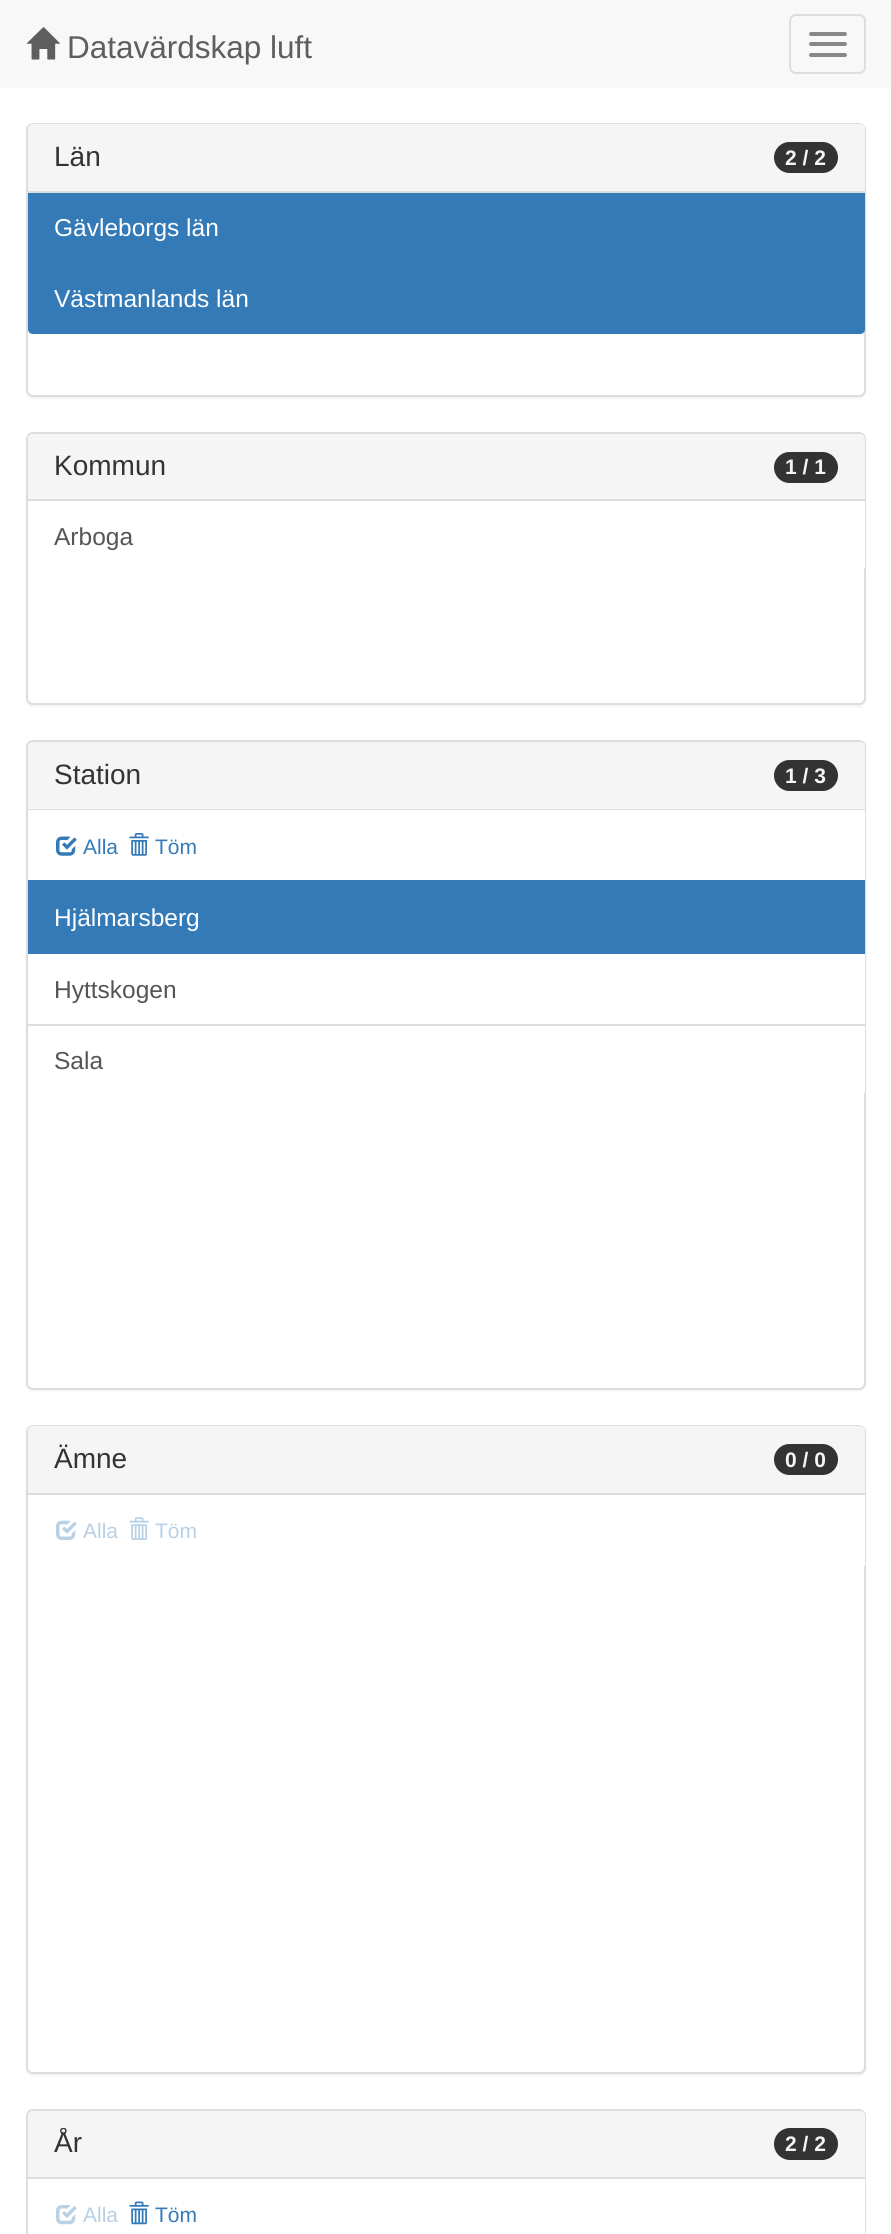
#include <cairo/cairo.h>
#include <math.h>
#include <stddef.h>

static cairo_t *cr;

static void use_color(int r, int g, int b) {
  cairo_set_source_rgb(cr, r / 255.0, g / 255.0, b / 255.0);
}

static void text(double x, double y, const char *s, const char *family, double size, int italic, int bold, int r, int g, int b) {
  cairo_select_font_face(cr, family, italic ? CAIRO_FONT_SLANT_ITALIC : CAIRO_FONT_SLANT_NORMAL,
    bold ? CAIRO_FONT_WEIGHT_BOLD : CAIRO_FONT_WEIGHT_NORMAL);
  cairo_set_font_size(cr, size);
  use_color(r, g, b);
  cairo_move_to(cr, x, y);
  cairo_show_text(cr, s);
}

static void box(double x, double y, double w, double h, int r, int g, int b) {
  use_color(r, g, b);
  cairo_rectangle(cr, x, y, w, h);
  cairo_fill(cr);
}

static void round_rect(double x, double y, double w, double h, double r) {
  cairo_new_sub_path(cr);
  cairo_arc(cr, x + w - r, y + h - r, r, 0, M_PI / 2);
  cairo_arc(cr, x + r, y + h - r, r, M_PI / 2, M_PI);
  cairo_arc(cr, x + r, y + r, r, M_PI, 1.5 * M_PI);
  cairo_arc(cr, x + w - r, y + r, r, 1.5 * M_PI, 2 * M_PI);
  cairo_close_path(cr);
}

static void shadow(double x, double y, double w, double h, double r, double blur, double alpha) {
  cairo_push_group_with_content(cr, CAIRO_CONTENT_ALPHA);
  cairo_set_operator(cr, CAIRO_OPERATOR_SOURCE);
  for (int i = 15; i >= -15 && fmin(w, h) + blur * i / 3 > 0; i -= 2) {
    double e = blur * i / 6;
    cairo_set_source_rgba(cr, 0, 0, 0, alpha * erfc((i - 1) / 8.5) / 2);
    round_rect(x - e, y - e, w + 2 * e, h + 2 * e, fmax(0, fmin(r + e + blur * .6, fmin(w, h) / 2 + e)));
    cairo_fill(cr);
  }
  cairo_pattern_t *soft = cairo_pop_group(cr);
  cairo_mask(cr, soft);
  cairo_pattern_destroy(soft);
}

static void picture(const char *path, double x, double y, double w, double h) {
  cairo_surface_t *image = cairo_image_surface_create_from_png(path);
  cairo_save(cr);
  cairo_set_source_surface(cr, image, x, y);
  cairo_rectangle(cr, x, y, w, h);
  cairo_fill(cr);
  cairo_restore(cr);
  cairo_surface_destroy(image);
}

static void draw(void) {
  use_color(255, 255, 255);
  cairo_paint(cr);
  box(0, 0, 891, 88, 248, 248, 248);
  picture("img_01.png", 26, 27, 34, 33);
  round_rect(790, 15, 75, 58, 6);
  use_color(221, 221, 221);
  cairo_stroke(cr);
  use_color(136, 136, 136);
  round_rect(809, 32, 38, 4, 2);
  cairo_fill(cr);
  round_rect(809, 42, 38, 4, 2);
  cairo_fill(cr);
  round_rect(809, 53, 38, 4, 2);
  cairo_fill(cr);
  use_color(0, 0, 0);
  shadow(26, 124, 840, 275, 7, 1, 0.05);
  use_color(255, 255, 255);
  round_rect(27, 124, 838, 272, 6);
  cairo_fill_preserve(cr);
  use_color(221, 221, 221);
  cairo_stroke(cr);
  use_color(245, 245, 245);
  cairo_new_path(cr);
  cairo_move_to(cr, 33, 124);
  cairo_line_to(cr, 860, 124);
  cairo_curve_to(cr, 863, 124, 865, 126, 865, 129);
  cairo_line_to(cr, 865, 193);
  cairo_line_to(cr, 28, 193);
  cairo_line_to(cr, 28, 129);
  cairo_curve_to(cr, 28, 126, 30, 124, 33, 124);
  cairo_close_path(cr);
  cairo_fill(cr);
  box(28, 191, 837, 2, 221, 221, 221);
  use_color(51, 51, 51);
  round_rect(774, 142, 64, 31, 15.5);
  cairo_fill(cr);
  box(28, 193, 837, 70, 51, 122, 183);
  cairo_new_path(cr);
  cairo_move_to(cr, 28, 263);
  cairo_line_to(cr, 865, 263);
  cairo_line_to(cr, 865, 329);
  cairo_curve_to(cr, 865, 332, 863, 334, 860, 334);
  cairo_line_to(cr, 33, 334);
  cairo_curve_to(cr, 30, 334, 28, 332, 28, 329);
  cairo_close_path(cr);
  cairo_fill(cr);
  use_color(0, 0, 0);
  shadow(26, 434, 840, 273, 7, 1, 0.05);
  use_color(255, 255, 255);
  round_rect(27, 433, 838, 271, 6);
  cairo_fill_preserve(cr);
  use_color(221, 221, 221);
  cairo_stroke(cr);
  use_color(245, 245, 245);
  cairo_new_path(cr);
  cairo_move_to(cr, 33, 434);
  cairo_line_to(cr, 860, 434);
  cairo_curve_to(cr, 863, 434, 865, 436, 865, 439);
  cairo_line_to(cr, 865, 501);
  cairo_line_to(cr, 28, 501);
  cairo_line_to(cr, 28, 439);
  cairo_curve_to(cr, 28, 436, 30, 434, 33, 434);
  cairo_close_path(cr);
  cairo_fill(cr);
  box(28, 499, 837, 2, 221, 221, 221);
  use_color(51, 51, 51);
  round_rect(774, 452, 64, 31, 15.5);
  cairo_fill(cr);
  use_color(255, 255, 255);
  cairo_new_path(cr);
  cairo_move_to(cr, 28, 501);
  cairo_line_to(cr, 865, 501);
  cairo_line_to(cr, 865, 566);
  cairo_curve_to(cr, 865, 569, 863, 571, 860, 571);
  cairo_line_to(cr, 33, 571);
  cairo_curve_to(cr, 30, 571, 28, 569, 28, 566);
  cairo_close_path(cr);
  cairo_fill(cr);
  use_color(0, 0, 0);
  shadow(26, 742, 840, 649, 7, 1, 0.05);
  use_color(255, 255, 255);
  round_rect(27, 741, 838, 648, 6);
  cairo_fill_preserve(cr);
  use_color(221, 221, 221);
  cairo_stroke(cr);
  use_color(245, 245, 245);
  cairo_new_path(cr);
  cairo_move_to(cr, 33, 742);
  cairo_line_to(cr, 860, 742);
  cairo_curve_to(cr, 863, 742, 865, 744, 865, 747);
  cairo_line_to(cr, 865, 810);
  cairo_line_to(cr, 28, 810);
  cairo_line_to(cr, 28, 747);
  cairo_curve_to(cr, 28, 744, 30, 742, 33, 742);
  cairo_close_path(cr);
  cairo_fill(cr);
  box(28, 809, 837, 1, 221, 221, 221);
  use_color(51, 51, 51);
  round_rect(774, 760, 64, 31, 15.5);
  cairo_fill(cr);
  box(864, 810, 1, 70, 255, 255, 255);
  picture("img_02.png", 56, 836, 21, 20);
  picture("img_03.png", 129, 833, 20, 23);
  box(28, 880, 837, 74, 51, 122, 183);
  box(864, 954, 1, 70, 255, 255, 255);
  cairo_new_path(cr);
  cairo_move_to(cr, 28, 1024);
  cairo_line_to(cr, 865, 1024);
  cairo_line_to(cr, 865, 1091);
  cairo_curve_to(cr, 865, 1094, 863, 1096, 860, 1096);
  cairo_line_to(cr, 33, 1096);
  cairo_curve_to(cr, 30, 1096, 28, 1094, 28, 1091);
  cairo_close_path(cr);
  cairo_fill(cr);
  box(28, 1024, 837, 2, 221, 221, 221);
  use_color(0, 0, 0);
  shadow(26, 1426, 840, 650, 7, 1, 0.05);
  use_color(255, 255, 255);
  round_rect(27, 1426, 838, 647, 6);
  cairo_fill_preserve(cr);
  use_color(221, 221, 221);
  cairo_stroke(cr);
  use_color(245, 245, 245);
  cairo_new_path(cr);
  cairo_move_to(cr, 33, 1426);
  cairo_line_to(cr, 860, 1426);
  cairo_curve_to(cr, 863, 1426, 865, 1428, 865, 1431);
  cairo_line_to(cr, 865, 1495);
  cairo_line_to(cr, 28, 1495);
  cairo_line_to(cr, 28, 1431);
  cairo_curve_to(cr, 28, 1428, 30, 1426, 33, 1426);
  cairo_close_path(cr);
  cairo_fill(cr);
  box(28, 1493, 837, 2, 221, 221, 221);
  use_color(51, 51, 51);
  round_rect(774, 1444, 64, 31, 15.5);
  cairo_fill(cr);
  box(864, 1495, 1, 71, 255, 255, 255);
  picture("img_04.png", 56, 1520, 21, 20);
  picture("img_05.png", 129, 1517, 20, 23);
  round_rect(27, 2110, 838, 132, 6);
  use_color(221, 221, 221);
  cairo_stroke(cr);
  use_color(245, 245, 245);
  cairo_new_path(cr);
  cairo_move_to(cr, 33, 2111);
  cairo_line_to(cr, 860, 2111);
  cairo_curve_to(cr, 863, 2111, 865, 2113, 865, 2116);
  cairo_line_to(cr, 865, 2179);
  cairo_line_to(cr, 28, 2179);
  cairo_line_to(cr, 28, 2116);
  cairo_curve_to(cr, 28, 2113, 30, 2111, 33, 2111);
  cairo_close_path(cr);
  cairo_fill(cr);
  box(28, 2177, 837, 2, 221, 221, 221);
  use_color(51, 51, 51);
  round_rect(774, 2128, 64, 32, 16);
  cairo_fill(cr);
  box(864, 2179, 1, 55, 255, 255, 255);
  picture("img_06.png", 56, 2205, 21, 20);
  picture("img_07.png", 129, 2201, 20, 24);
  text(67, 58, "Datavärdskap luft", "Liberation Sans", 31.5, 0, 0, 94, 94, 94);
  text(54, 166, "Län", "Liberation Sans", 28, 0, 0, 51, 51, 51);
  text(785, 165, "2 / 2", "Liberation Sans", 21, 0, 1, 245, 245, 245);
  text(54, 236, "Gävleborgs län", "Liberation Sans", 24.5, 0, 0, 255, 255, 255);
  text(54, 307, "Västmanlands län", "Liberation Sans", 24.5, 0, 0, 255, 255, 255);
  text(54, 475, "Kommun", "Liberation Sans", 28, 0, 0, 51, 51, 51);
  text(785, 474, "1 / 1", "Liberation Sans", 21, 0, 1, 245, 245, 245);
  text(54, 545, "Arboga", "Liberation Sans", 24.5, 0, 0, 85, 85, 85);
  text(54, 784, "Station", "Liberation Sans", 28, 0, 0, 51, 51, 51);
  text(785, 783, "1 / 3", "Liberation Sans", 21, 0, 1, 245, 245, 245);
  text(83, 854, "Alla", "Liberation Sans", 21, 0, 0, 51, 122, 183);
  text(155, 854, "Töm", "Liberation Sans", 21, 0, 0, 51, 122, 183);
  text(54, 926, "Hjälmarsberg", "Liberation Sans", 24.5, 0, 0, 255, 255, 255);
  text(54, 998, "Hyttskogen", "Liberation Sans", 24.5, 0, 0, 85, 85, 85);
  text(54, 1069, "Sala", "Liberation Sans", 24.5, 0, 0, 85, 85, 85);
  text(54, 1468, "Ämne", "Liberation Sans", 28, 0, 0, 51, 51, 51);
  text(785, 1467, "0 / 0", "Liberation Sans", 21, 0, 1, 245, 245, 245);
  text(83, 1538, "Alla", "Liberation Sans", 21, 0, 0, 184, 208, 230);
  text(155, 1538, "Töm", "Liberation Sans", 21, 0, 0, 184, 208, 230);
  cairo_save(cr);
  cairo_rectangle(cr, 54, 2128, 720, 32);
  cairo_clip(cr);
  text(54, 2152, "År", "Liberation Sans", 28, 0, 0, 51, 51, 51);
  cairo_restore(cr);
  text(785, 2151, "2 / 2", "Liberation Sans", 21, 0, 1, 245, 245, 245);
  text(83, 2222, "Alla", "Liberation Sans", 21, 0, 0, 184, 208, 230);
  text(155, 2222, "Töm", "Liberation Sans", 21, 0, 0, 51, 122, 183);
}

int main(void) {
  cairo_surface_t *surface = cairo_image_surface_create(CAIRO_FORMAT_RGB24, 891, 2234);
  cr = cairo_create(surface);
  cairo_font_options_t *options = cairo_font_options_create();
  cairo_font_options_set_hint_metrics(options, CAIRO_HINT_METRICS_OFF);
  cairo_font_options_set_hint_style(options, CAIRO_HINT_STYLE_NONE);
  cairo_set_font_options(cr, options);
  cairo_set_miter_limit(cr, 4);
  draw();
  cairo_surface_write_to_png(surface, "out.png");
  cairo_font_options_destroy(options);
  cairo_destroy(cr);
  cairo_surface_destroy(surface);
  return 0;
}
